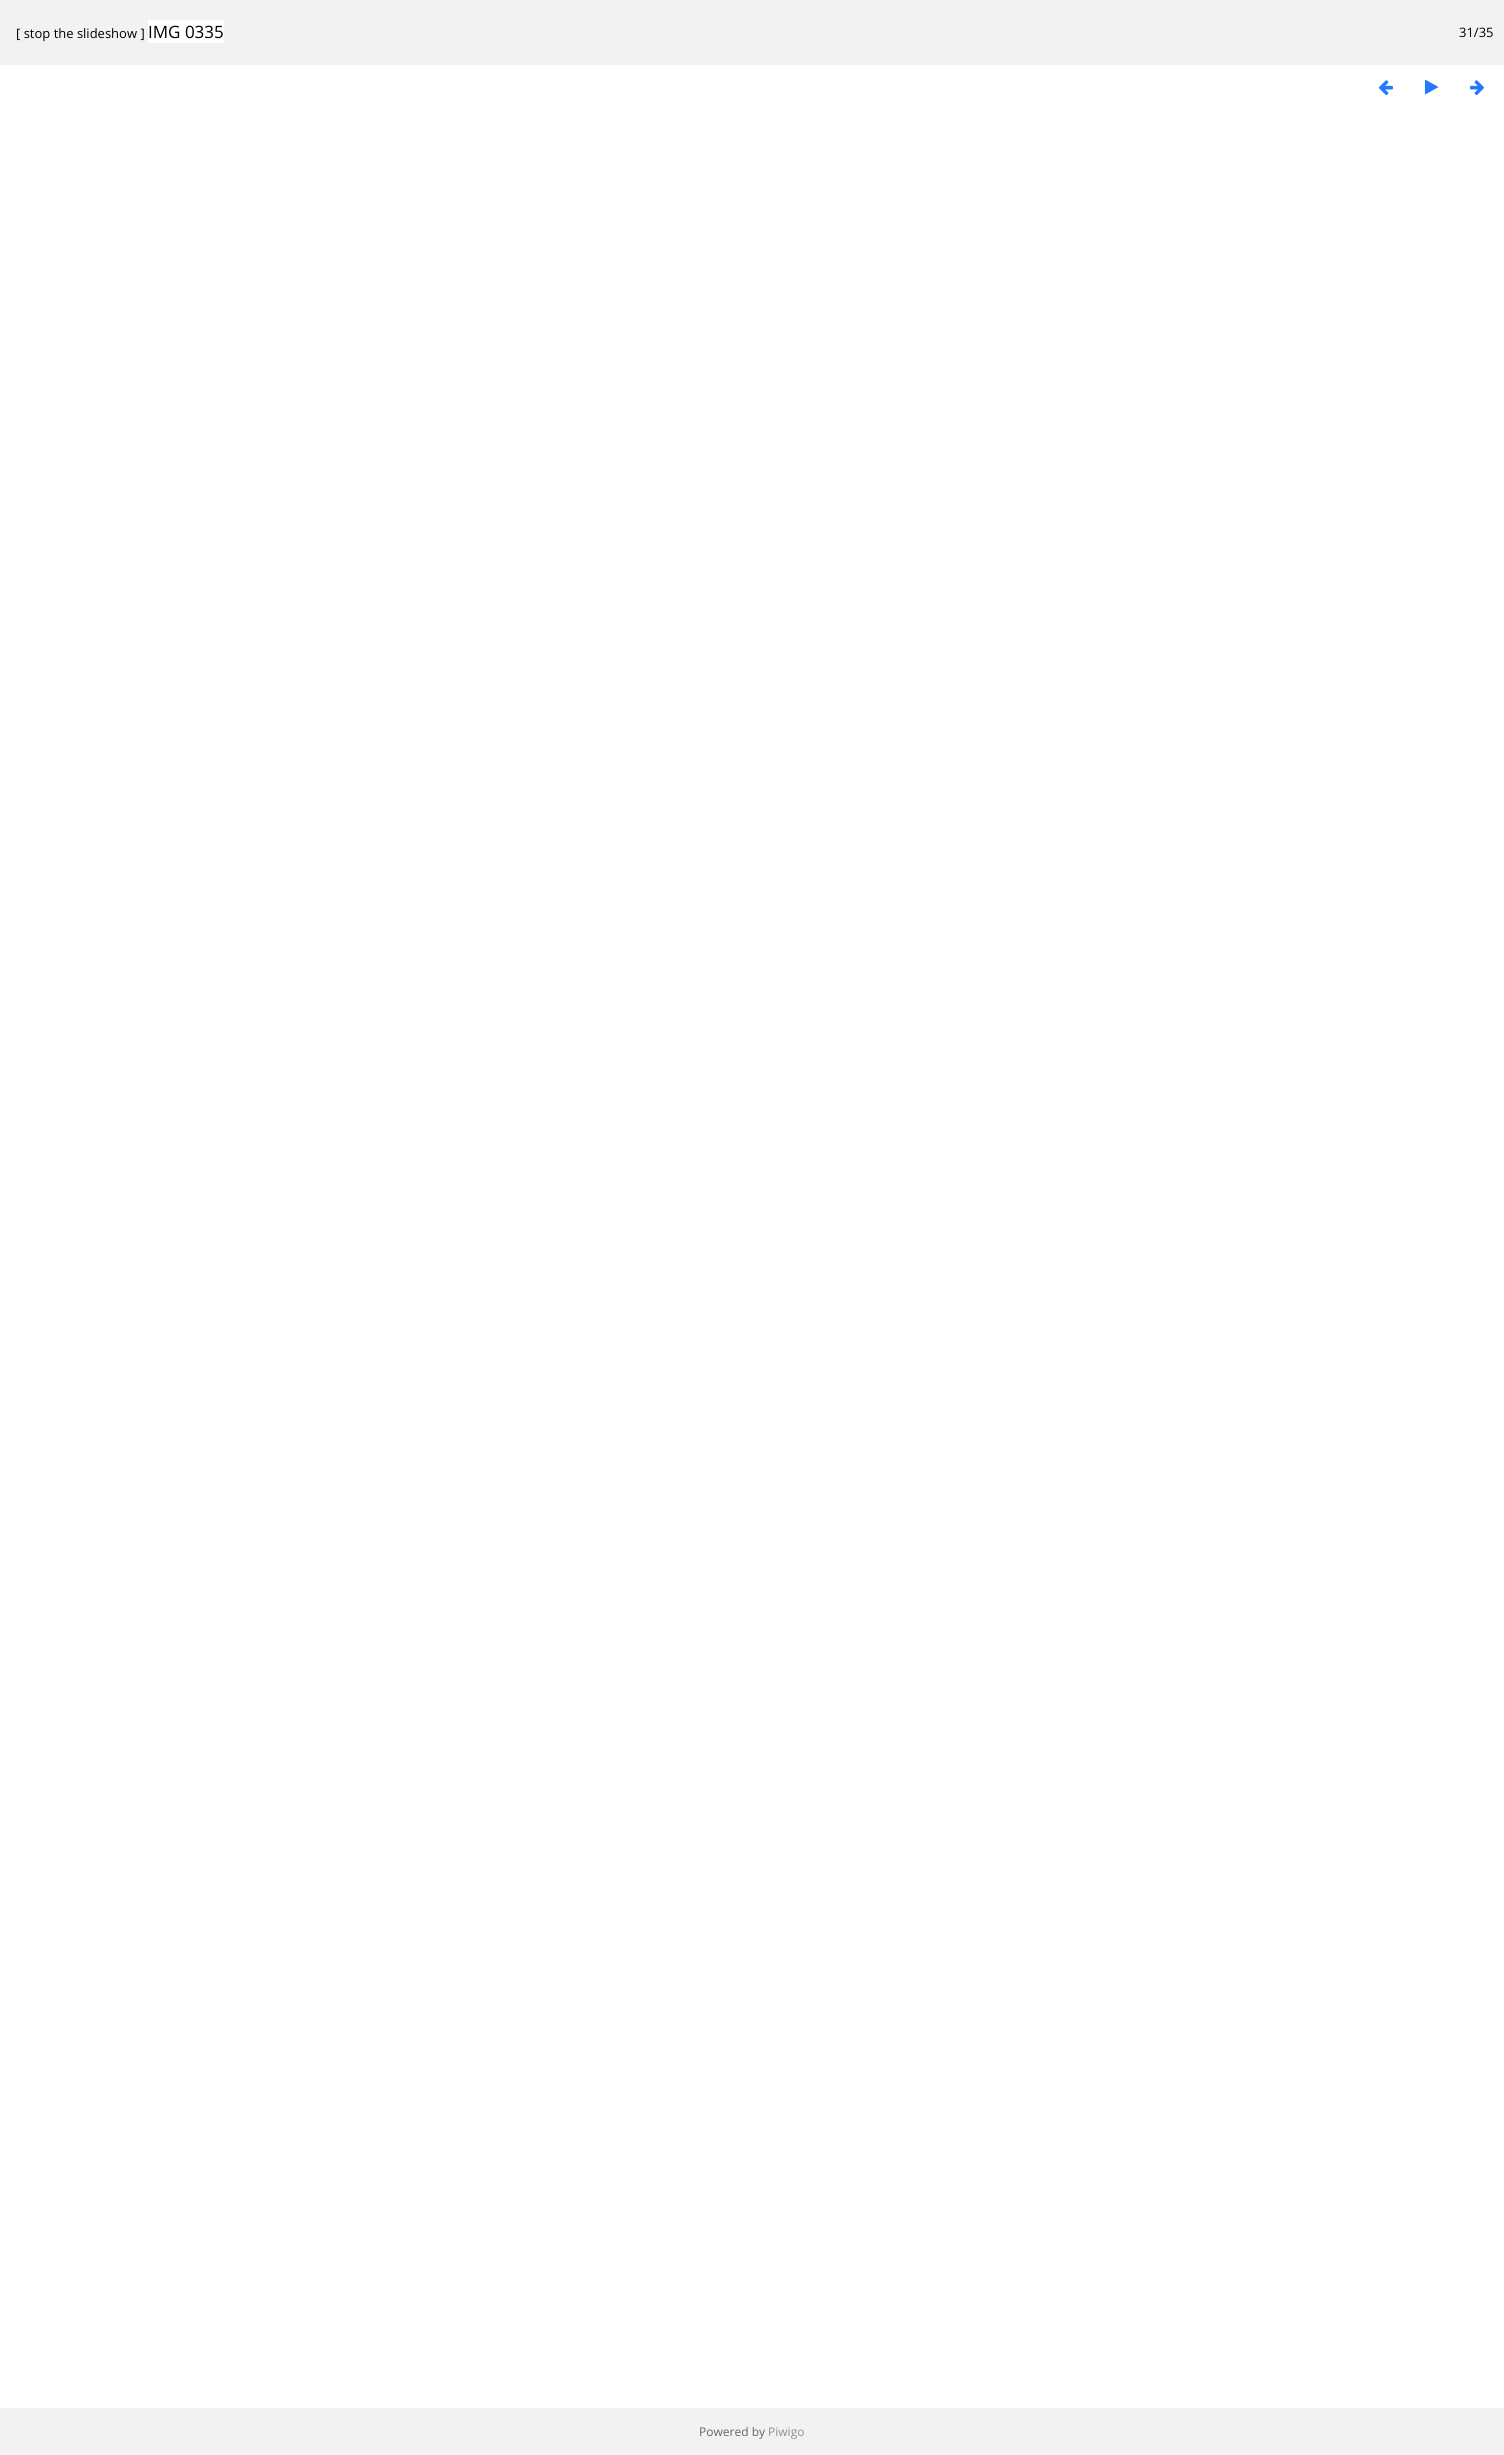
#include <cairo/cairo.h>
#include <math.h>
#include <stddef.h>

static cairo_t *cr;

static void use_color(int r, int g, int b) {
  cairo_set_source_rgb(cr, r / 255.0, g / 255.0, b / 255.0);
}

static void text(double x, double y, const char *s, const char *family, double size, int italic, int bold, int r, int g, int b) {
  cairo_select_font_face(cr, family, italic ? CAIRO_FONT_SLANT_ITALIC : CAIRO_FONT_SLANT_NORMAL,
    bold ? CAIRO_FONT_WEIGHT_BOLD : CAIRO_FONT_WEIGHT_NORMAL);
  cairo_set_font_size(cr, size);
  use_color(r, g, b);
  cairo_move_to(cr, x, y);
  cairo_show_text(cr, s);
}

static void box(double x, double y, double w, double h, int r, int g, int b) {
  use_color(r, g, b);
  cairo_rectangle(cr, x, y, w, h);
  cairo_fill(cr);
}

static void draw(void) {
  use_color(255, 255, 255);
  cairo_paint(cr);
  box(0, 0, 1504, 65, 242, 242, 242);
  box(148, 20, 76, 23, 255, 255, 255);
  box(0, 2408, 1504, 47, 242, 242, 242);
  text(16, 38, "[ stop the slideshow ]", "Open Sans", 13, 0, 0, 0, 0, 0);
  text(148, 38, "IMG 0335", "Open Sans", 17, 0, 0, 0, 0, 0);
  text(1459, 37, "31/35", "Open Sans", 13, 0, 0, 0, 0, 0);
  text(1379, 93, "←", "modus", 17, 0, 0, 35, 121, 255);
  text(1425, 93, "▶", "modus", 17, 0, 0, 35, 121, 255);
  text(1470, 93, "→", "modus", 17, 0, 0, 35, 121, 255);
  text(699, 2436, "Powered by", "Open Sans", 12, 0, 0, 102, 102, 102);
  text(768, 2436, "Piwigo", "Open Sans", 12, 0, 0, 142, 142, 147);
}

int main(void) {
  cairo_surface_t *surface = cairo_image_surface_create(CAIRO_FORMAT_RGB24, 1504, 2455);
  cr = cairo_create(surface);
  cairo_font_options_t *options = cairo_font_options_create();
  cairo_font_options_set_hint_metrics(options, CAIRO_HINT_METRICS_OFF);
  cairo_font_options_set_hint_style(options, CAIRO_HINT_STYLE_NONE);
  cairo_set_font_options(cr, options);
  cairo_set_miter_limit(cr, 4);
  draw();
  cairo_surface_write_to_png(surface, "out.png");
  cairo_font_options_destroy(options);
  cairo_destroy(cr);
  cairo_surface_destroy(surface);
  return 0;
}
